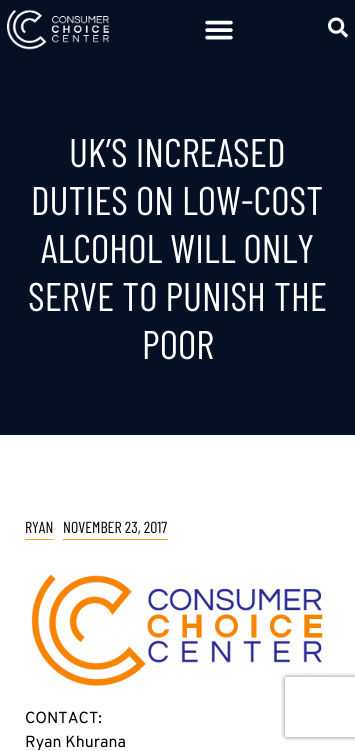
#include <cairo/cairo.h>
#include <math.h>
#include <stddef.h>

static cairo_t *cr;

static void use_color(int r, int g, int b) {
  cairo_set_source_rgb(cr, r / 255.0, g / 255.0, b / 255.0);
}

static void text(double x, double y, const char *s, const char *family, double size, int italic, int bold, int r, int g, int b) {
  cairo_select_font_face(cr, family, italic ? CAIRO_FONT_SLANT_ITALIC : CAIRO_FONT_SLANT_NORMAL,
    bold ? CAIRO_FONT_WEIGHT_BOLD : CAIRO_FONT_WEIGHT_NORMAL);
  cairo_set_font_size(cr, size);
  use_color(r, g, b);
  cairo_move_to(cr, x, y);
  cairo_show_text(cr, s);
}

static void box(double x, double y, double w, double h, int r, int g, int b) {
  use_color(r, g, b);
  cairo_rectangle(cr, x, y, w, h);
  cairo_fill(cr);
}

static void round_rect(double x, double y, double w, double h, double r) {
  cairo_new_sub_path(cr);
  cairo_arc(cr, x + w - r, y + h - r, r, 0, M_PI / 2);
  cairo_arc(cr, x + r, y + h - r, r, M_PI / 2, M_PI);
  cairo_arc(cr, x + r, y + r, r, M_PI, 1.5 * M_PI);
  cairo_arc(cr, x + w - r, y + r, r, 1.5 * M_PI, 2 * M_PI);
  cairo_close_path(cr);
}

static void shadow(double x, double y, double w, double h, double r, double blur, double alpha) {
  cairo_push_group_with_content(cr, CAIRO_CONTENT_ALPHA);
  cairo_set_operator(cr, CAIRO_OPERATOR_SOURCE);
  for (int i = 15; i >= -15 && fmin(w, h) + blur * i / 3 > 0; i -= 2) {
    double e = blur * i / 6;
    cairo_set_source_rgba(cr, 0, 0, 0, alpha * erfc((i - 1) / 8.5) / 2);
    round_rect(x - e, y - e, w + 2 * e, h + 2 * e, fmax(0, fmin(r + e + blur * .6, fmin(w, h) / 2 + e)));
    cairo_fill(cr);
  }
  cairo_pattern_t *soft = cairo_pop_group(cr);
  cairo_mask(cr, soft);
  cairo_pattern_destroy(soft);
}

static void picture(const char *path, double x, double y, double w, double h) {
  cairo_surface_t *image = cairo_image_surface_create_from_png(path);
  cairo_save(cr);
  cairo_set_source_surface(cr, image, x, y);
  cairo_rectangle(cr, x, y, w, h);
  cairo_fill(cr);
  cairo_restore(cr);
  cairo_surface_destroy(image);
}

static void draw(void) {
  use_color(255, 255, 255);
  cairo_paint(cr);
  box(0, 0, 355, 435, 6, 16, 36);
  picture("img_01.png", 7, 9, 103, 41);
  picture("img_02.png", 205, 20, 28, 20);
  picture("img_03.png", 328, 17, 20, 21);
  box(25, 539, 28, 1, 246, 162, 19);
  box(63, 539, 105, 1, 246, 162, 19);
  picture("img_04.png", 31, 574, 292, 112);
  cairo_save(cr);
  cairo_set_fill_rule(cr, CAIRO_FILL_RULE_EVEN_ODD);
  cairo_new_path(cr);
  cairo_move_to(cr, 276, 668);
  cairo_line_to(cr, 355, 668);
  cairo_line_to(cr, 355, 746);
  cairo_line_to(cr, 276, 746);
  cairo_close_path(cr);
  cairo_move_to(cr, 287, 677);
  cairo_line_to(cr, 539, 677);
  cairo_curve_to(cr, 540, 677, 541, 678, 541, 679);
  cairo_line_to(cr, 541, 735);
  cairo_curve_to(cr, 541, 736, 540, 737, 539, 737);
  cairo_line_to(cr, 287, 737);
  cairo_curve_to(cr, 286, 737, 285, 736, 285, 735);
  cairo_line_to(cr, 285, 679);
  cairo_curve_to(cr, 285, 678, 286, 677, 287, 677);
  cairo_close_path(cr);
  cairo_clip(cr);
  use_color(128, 128, 128);
  shadow(285, 677, 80, 60, 2, 2.5, 1);
  cairo_restore(cr);
  text(69, 167, "UK’S INCREASED", "Barlow Condensed", 40, 0, 0, 255, 255, 255);
  text(31, 215, "DUTIES ON LOW-COST", "Barlow Condensed", 40, 0, 0, 255, 255, 255);
  text(41, 263, "ALCOHOL WILL ONLY", "Barlow Condensed", 40, 0, 0, 255, 255, 255);
  text(28, 311, "SERVE TO PUNISH THE", "Barlow Condensed", 40, 0, 0, 255, 255, 255);
  text(142, 359, "POOR", "Barlow Condensed", 40, 0, 0, 255, 255, 255);
  text(25, 533, "RYAN", "Barlow Condensed", 16, 0, 0, 0, 0, 0);
  text(63, 533, "NOVEMBER 23, 2017", "Barlow Condensed", 16, 0, 0, 0, 0, 0);
  text(25, 723, "CONTACT:", "Overpass", 16, 0, 0, 0, 0, 0);
  text(25, 747, "Ryan Khurana", "Overpass", 16, 0, 0, 0, 0, 0);
}

int main(void) {
  cairo_surface_t *surface = cairo_image_surface_create(CAIRO_FORMAT_RGB24, 355, 751);
  cr = cairo_create(surface);
  cairo_font_options_t *options = cairo_font_options_create();
  cairo_font_options_set_hint_metrics(options, CAIRO_HINT_METRICS_OFF);
  cairo_font_options_set_hint_style(options, CAIRO_HINT_STYLE_NONE);
  cairo_set_font_options(cr, options);
  cairo_set_miter_limit(cr, 4);
  draw();
  cairo_surface_write_to_png(surface, "out.png");
  cairo_font_options_destroy(options);
  cairo_destroy(cr);
  cairo_surface_destroy(surface);
  return 0;
}
